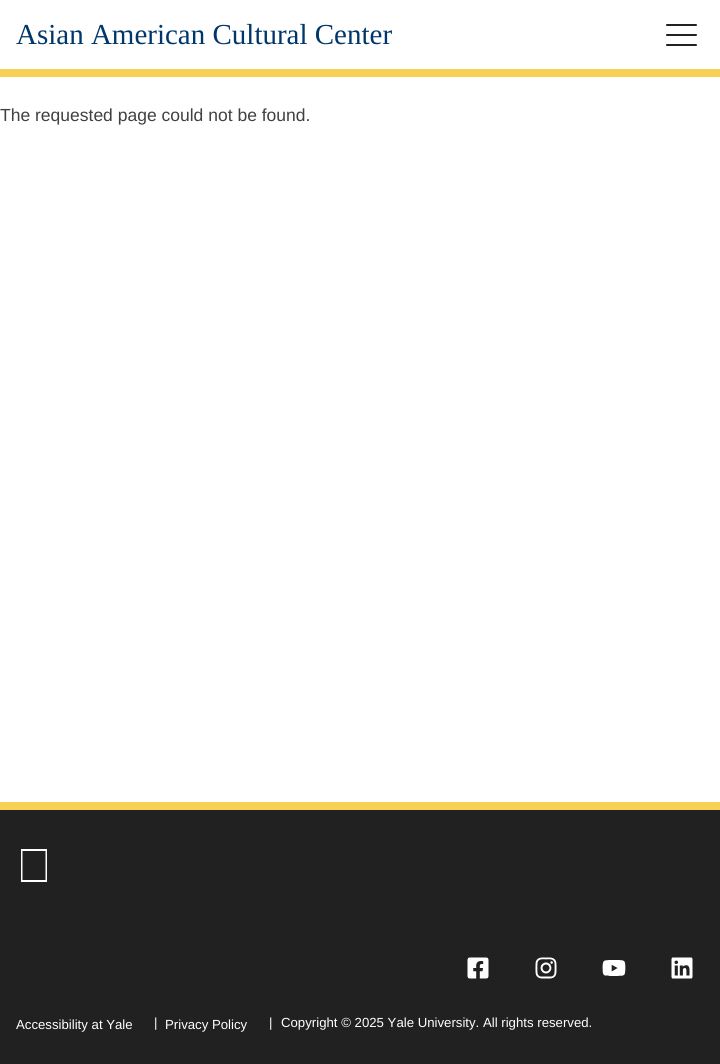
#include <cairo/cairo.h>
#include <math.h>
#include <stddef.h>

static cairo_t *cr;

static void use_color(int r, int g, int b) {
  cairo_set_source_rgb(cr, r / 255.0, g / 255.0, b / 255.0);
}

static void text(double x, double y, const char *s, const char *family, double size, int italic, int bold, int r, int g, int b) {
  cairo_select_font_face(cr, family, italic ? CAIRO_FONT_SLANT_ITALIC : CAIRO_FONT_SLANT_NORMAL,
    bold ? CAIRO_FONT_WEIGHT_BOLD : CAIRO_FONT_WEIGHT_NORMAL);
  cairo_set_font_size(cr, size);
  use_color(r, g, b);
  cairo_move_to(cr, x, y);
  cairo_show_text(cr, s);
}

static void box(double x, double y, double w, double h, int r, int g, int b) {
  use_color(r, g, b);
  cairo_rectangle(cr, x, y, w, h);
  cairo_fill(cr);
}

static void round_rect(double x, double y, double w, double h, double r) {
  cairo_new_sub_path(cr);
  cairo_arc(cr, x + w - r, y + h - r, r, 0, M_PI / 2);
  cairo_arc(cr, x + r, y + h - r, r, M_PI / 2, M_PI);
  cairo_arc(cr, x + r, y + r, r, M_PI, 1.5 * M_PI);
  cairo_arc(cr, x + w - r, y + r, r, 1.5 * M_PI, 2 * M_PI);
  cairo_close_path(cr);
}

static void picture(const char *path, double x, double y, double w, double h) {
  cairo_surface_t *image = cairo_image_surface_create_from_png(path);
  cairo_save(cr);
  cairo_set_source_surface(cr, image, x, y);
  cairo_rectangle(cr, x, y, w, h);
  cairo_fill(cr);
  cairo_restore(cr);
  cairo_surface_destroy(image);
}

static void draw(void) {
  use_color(255, 255, 255);
  cairo_paint(cr);
  box(0, 69, 720, 8, 246, 209, 85);
  use_color(33, 33, 33);
  round_rect(666, 24, 31, 2, 1);
  cairo_fill(cr);
  round_rect(666, 34, 31, 2, 1);
  cairo_fill(cr);
  round_rect(666, 44, 31, 2, 1);
  cairo_fill(cr);
  box(0, 810, 720, 254, 33, 33, 33);
  box(0, 802, 720, 8, 246, 209, 85);
  use_color(255, 255, 255);
  cairo_new_path(cr);
  cairo_move_to(cr, 21, 849);
  cairo_line_to(cr, 47, 849);
  cairo_line_to(cr, 47, 882);
  cairo_line_to(cr, 21, 882);
  cairo_close_path(cr);
  cairo_move_to(cr, 22.5, 851);
  cairo_line_to(cr, 22.5, 880);
  cairo_line_to(cr, 45.5, 880);
  cairo_line_to(cr, 45.5, 851);
  cairo_close_path(cr);
  cairo_fill(cr);
  picture("img_01.png", 467, 957, 22, 22);
  picture("img_02.png", 535, 957, 22, 22);
  picture("img_03.png", 602, 960, 24, 16);
  picture("img_04.png", 671, 957, 22, 22);
  text(16, 44, "Asian American Cultural Center", "Liberation Serif", 29, 0, 0, 0, 54, 107);
  text(0, 121, "The requested page could not be found.", "Liberation Sans", 17.5, 0, 0, 64, 64, 64);
  text(16, 1029, "Accessibility at Yale", "Liberation Sans", 13.2, 0, 0, 255, 255, 255);
  text(154, 1027, "|", "Liberation Sans", 13.2, 0, 0, 255, 255, 255);
  text(165, 1029, "Privacy Policy", "Liberation Sans", 13.2, 0, 0, 255, 255, 255);
  text(269, 1027, "|", "Liberation Sans", 13.2, 0, 0, 255, 255, 255);
  text(281, 1027, "Copyright © 2025 Yale University. All rights reserved.", "Liberation Sans", 13.2, 0, 0, 255, 255, 255);
}

int main(void) {
  cairo_surface_t *surface = cairo_image_surface_create(CAIRO_FORMAT_RGB24, 720, 1064);
  cr = cairo_create(surface);
  cairo_font_options_t *options = cairo_font_options_create();
  cairo_font_options_set_hint_metrics(options, CAIRO_HINT_METRICS_OFF);
  cairo_font_options_set_hint_style(options, CAIRO_HINT_STYLE_NONE);
  cairo_set_font_options(cr, options);
  cairo_set_miter_limit(cr, 4);
  draw();
  cairo_surface_write_to_png(surface, "out.png");
  cairo_font_options_destroy(options);
  cairo_destroy(cr);
  cairo_surface_destroy(surface);
  return 0;
}
